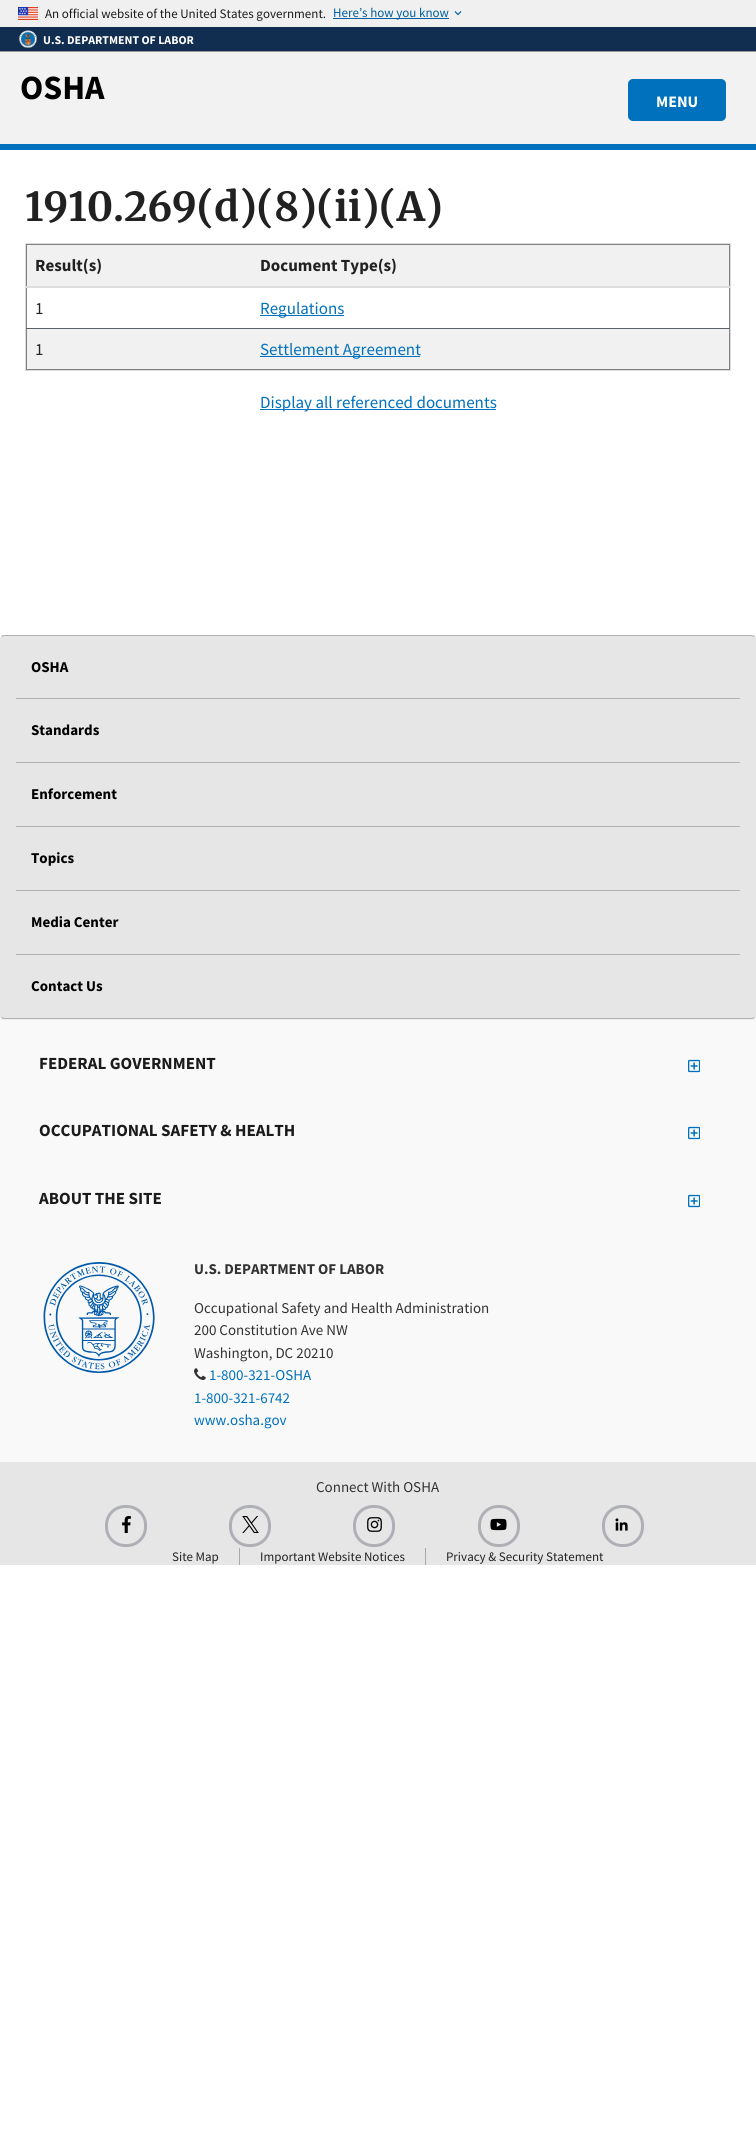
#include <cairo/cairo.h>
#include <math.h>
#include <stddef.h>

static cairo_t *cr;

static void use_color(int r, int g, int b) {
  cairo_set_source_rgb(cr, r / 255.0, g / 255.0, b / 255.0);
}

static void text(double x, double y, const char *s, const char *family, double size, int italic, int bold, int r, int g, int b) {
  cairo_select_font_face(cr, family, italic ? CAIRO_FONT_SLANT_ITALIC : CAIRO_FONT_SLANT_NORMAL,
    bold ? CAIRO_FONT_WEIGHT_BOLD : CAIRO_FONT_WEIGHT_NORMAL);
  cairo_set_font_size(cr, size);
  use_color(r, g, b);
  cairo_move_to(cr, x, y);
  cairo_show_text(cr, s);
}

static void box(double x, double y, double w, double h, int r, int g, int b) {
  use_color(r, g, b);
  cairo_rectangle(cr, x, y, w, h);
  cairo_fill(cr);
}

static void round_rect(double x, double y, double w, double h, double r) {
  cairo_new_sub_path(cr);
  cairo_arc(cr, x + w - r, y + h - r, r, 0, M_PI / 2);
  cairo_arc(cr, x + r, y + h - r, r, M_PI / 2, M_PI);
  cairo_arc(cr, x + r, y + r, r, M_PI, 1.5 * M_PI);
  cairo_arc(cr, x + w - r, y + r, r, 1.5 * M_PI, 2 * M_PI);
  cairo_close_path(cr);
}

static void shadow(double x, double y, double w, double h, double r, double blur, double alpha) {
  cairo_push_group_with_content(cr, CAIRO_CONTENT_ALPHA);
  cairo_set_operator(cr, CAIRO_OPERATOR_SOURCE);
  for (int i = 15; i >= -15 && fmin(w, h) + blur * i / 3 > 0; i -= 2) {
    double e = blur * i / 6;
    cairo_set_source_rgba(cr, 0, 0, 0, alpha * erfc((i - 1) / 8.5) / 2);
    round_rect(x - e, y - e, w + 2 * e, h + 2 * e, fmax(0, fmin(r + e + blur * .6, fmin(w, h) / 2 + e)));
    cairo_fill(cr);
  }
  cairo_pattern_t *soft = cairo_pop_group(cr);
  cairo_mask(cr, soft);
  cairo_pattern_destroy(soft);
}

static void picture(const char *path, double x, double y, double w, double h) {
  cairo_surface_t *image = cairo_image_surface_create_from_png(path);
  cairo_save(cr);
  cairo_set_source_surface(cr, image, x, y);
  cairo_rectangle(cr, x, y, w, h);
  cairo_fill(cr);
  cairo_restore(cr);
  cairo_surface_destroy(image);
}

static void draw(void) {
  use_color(255, 255, 255);
  cairo_paint(cr);
  box(0, 0, 756, 27, 240, 240, 240);
  picture("img_01.png", 18, 7, 20, 13);
  box(333, 18, 116, 1, 0, 94, 162);
  picture("img_02.png", 454, 11, 8, 5);
  box(0, 27, 756, 24, 17, 46, 81);
  box(0, 51, 756, 1, 151, 151, 151);
  picture("img_03.png", 19, 30, 18, 18);
  box(0, 52, 756, 92, 242, 242, 242);
  use_color(0, 113, 188);
  round_rect(628, 79, 98, 42, 5);
  cairo_fill(cr);
  box(0, 144, 756, 6, 0, 113, 188);
  cairo_rectangle(cr, 25.5, 243.5, 705, 127);
  use_color(221, 221, 221);
  cairo_set_line_width(cr, 1);
  cairo_stroke(cr);
  box(26, 244, 704, 1, 128, 128, 128);
  box(729, 244, 1, 126, 128, 128, 128);
  box(26, 369, 704, 1, 128, 128, 128);
  box(26, 244, 1, 126, 128, 128, 128);
  box(27, 245, 702, 41, 241, 241, 241);
  box(26, 286, 704, 2, 221, 221, 221);
  box(26, 328, 704, 1, 91, 97, 107);
  box(260, 315, 84, 1, 0, 113, 188);
  box(27, 329, 702, 40, 241, 241, 241);
  box(260, 356, 160, 1, 0, 113, 188);
  box(260, 409, 236, 1, 0, 113, 188);
  box(0, 1019, 756, 443, 249, 249, 249);
  use_color(0, 0, 0);
  shadow(0, 636, 756, 384, 4, 0.5, 0.05);
  use_color(230, 230, 230);
  round_rect(0, 635, 756, 384, 4);
  cairo_fill(cr);
  cairo_new_path(cr);
  cairo_move_to(cr, 1.5, 636.5);
  cairo_line_to(cr, 4, 635.5);
  cairo_line_to(cr, 752, 635.5);
  cairo_line_to(cr, 754.5, 636.5);
  use_color(174, 176, 181);
  cairo_stroke(cr);
  cairo_new_path(cr);
  cairo_move_to(cr, 754.5, 1017.5);
  cairo_line_to(cr, 752, 1018.5);
  cairo_line_to(cr, 4, 1018.5);
  cairo_line_to(cr, 1.5, 1017.5);
  cairo_stroke(cr);
  box(16, 698, 724, 1, 174, 176, 181);
  box(16, 762, 724, 1, 174, 176, 181);
  box(16, 826, 724, 1, 174, 176, 181);
  box(16, 890, 724, 1, 174, 176, 181);
  box(16, 954, 724, 1, 174, 176, 181);
  picture("img_04.png", 688, 1059, 12, 14);
  picture("img_04.png", 688, 1126, 12, 14);
  picture("img_04.png", 688, 1194, 12, 14);
  picture("img_05.png", 43, 1262, 112, 111);
  picture("img_06.png", 194, 1368, 12, 12);
  box(0, 1462, 756, 103, 230, 230, 230);
  round_rect(106.5, 1506.5, 39, 39, 18.5);
  use_color(174, 176, 181);
  cairo_set_line_width(cr, 3);
  cairo_stroke(cr);
  picture("img_07.png", 122, 1516, 9, 17);
  round_rect(230.5, 1506.5, 39, 39, 18.5);
  cairo_stroke(cr);
  picture("img_08.png", 242, 1516, 17, 17);
  round_rect(354.5, 1506.5, 39, 39, 18.5);
  cairo_stroke(cr);
  picture("img_09.png", 367, 1517, 15, 15);
  round_rect(479.5, 1506.5, 39, 39, 18.5);
  cairo_stroke(cr);
  picture("img_10.png", 490, 1518, 17, 13);
  round_rect(603.5, 1506.5, 39, 39, 18.5);
  cairo_stroke(cr);
  picture("img_11.png", 615, 1518, 13, 13);
  box(239, 1548, 1, 17, 169, 169, 169);
  box(425, 1548, 1, 17, 169, 169, 169);
  text(45, 18, "An official website of the United States government.", "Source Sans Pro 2", 13, 0, 0, 27, 27, 27);
  text(333, 17, "Here’s how you know", "Source Sans Pro", 13, 0, 0, 0, 94, 162);
  text(43, 44, "U.S. DEPARTMENT OF LABOR", "Source Sans Pro", 11.9, 0, 1, 255, 255, 255);
  text(20, 99, "OSHA", "Source Sans Pro 2", 34, 0, 1, 0, 0, 0);
  text(656, 107, "MENU", "Source Sans Pro", 16, 0, 1, 255, 255, 255);
  text(25, 221, "1910.269(d)(8)(ii)(A)", "Merriweather", 39.9, 0, 1, 33, 33, 33);
  text(35, 271, "Result(s)", "Source Sans Pro", 17, 0, 1, 33, 33, 33);
  text(260, 271, "Document Type(s)", "Source Sans Pro", 17, 0, 1, 33, 33, 33);
  text(35, 314, "1", "Source Sans Pro", 17, 0, 0, 33, 37, 41);
  text(260, 314, "Regulations", "Source Sans Pro", 17, 0, 0, 0, 113, 188);
  text(35, 355, "1", "Source Sans Pro", 17, 0, 0, 33, 37, 41);
  text(260, 355, "Settlement Agreement", "Source Sans Pro", 17, 0, 0, 0, 113, 188);
  text(260, 408, "Display all referenced documents", "Source Sans Pro", 17, 0, 0, 0, 113, 188);
  text(31, 672, "OSHA", "Source Sans Pro 2", 15, 0, 1, 0, 0, 0);
  text(31, 735, "Standards", "Source Sans Pro 2", 15, 0, 1, 0, 0, 0);
  text(31, 799, "Enforcement", "Source Sans Pro 2", 15, 0, 1, 0, 0, 0);
  text(31, 863, "Topics", "Source Sans Pro 2", 15, 0, 1, 0, 0, 0);
  text(31, 927, "Media Center", "Source Sans Pro 2", 15, 0, 1, 0, 0, 0);
  text(31, 991, "Contact Us", "Source Sans Pro 2", 15, 0, 1, 0, 0, 0);
  text(39, 1069, "FEDERAL GOVERNMENT", "Source Sans Pro", 17, 0, 1, 27, 27, 27);
  text(39, 1136, "OCCUPATIONAL SAFETY & HEALTH", "Source Sans Pro", 17, 0, 1, 27, 27, 27);
  text(39, 1204, "ABOUT THE SITE", "Source Sans Pro", 17, 0, 1, 27, 27, 27);
  text(194, 1274, "U.S. DEPARTMENT OF LABOR", "Source Sans Pro", 15, 0, 1, 51, 51, 51);
  text(194, 1313, "Occupational Safety and Health Administration", "Source Sans Pro 2", 15, 0, 0, 51, 51, 51);
  text(194, 1335, "200 Constitution Ave NW", "Source Sans Pro 2", 15, 0, 0, 51, 51, 51);
  text(194, 1358, "Washington, DC 20210", "Source Sans Pro 2", 15, 0, 0, 51, 51, 51);
  text(209, 1380, "1-800-321-OSHA", "Source Sans Pro 2", 15, 0, 0, 0, 113, 188);
  text(194, 1403, "1-800-321-6742", "Source Sans Pro 2", 15, 0, 0, 0, 113, 188);
  text(194, 1425, "www.osha.gov", "Source Sans Pro 2", 15, 0, 0, 0, 113, 188);
  text(316, 1492, "Connect With OSHA", "Source Sans Pro 2", 15, 0, 0, 51, 51, 51);
  text(172, 1561, "Site Map", "Source Sans Pro", 13, 0, 0, 33, 33, 33);
  text(260, 1561, "Important Website Notices", "Source Sans Pro", 13, 0, 0, 33, 33, 33);
  text(446, 1561, "Privacy & Security Statement", "Source Sans Pro", 13, 0, 0, 33, 33, 33);
}

int main(void) {
  cairo_surface_t *surface = cairo_image_surface_create(CAIRO_FORMAT_RGB24, 756, 2150);
  cr = cairo_create(surface);
  cairo_font_options_t *options = cairo_font_options_create();
  cairo_font_options_set_hint_metrics(options, CAIRO_HINT_METRICS_OFF);
  cairo_font_options_set_hint_style(options, CAIRO_HINT_STYLE_NONE);
  cairo_set_font_options(cr, options);
  cairo_set_miter_limit(cr, 4);
  draw();
  cairo_surface_write_to_png(surface, "out.png");
  cairo_font_options_destroy(options);
  cairo_destroy(cr);
  cairo_surface_destroy(surface);
  return 0;
}
